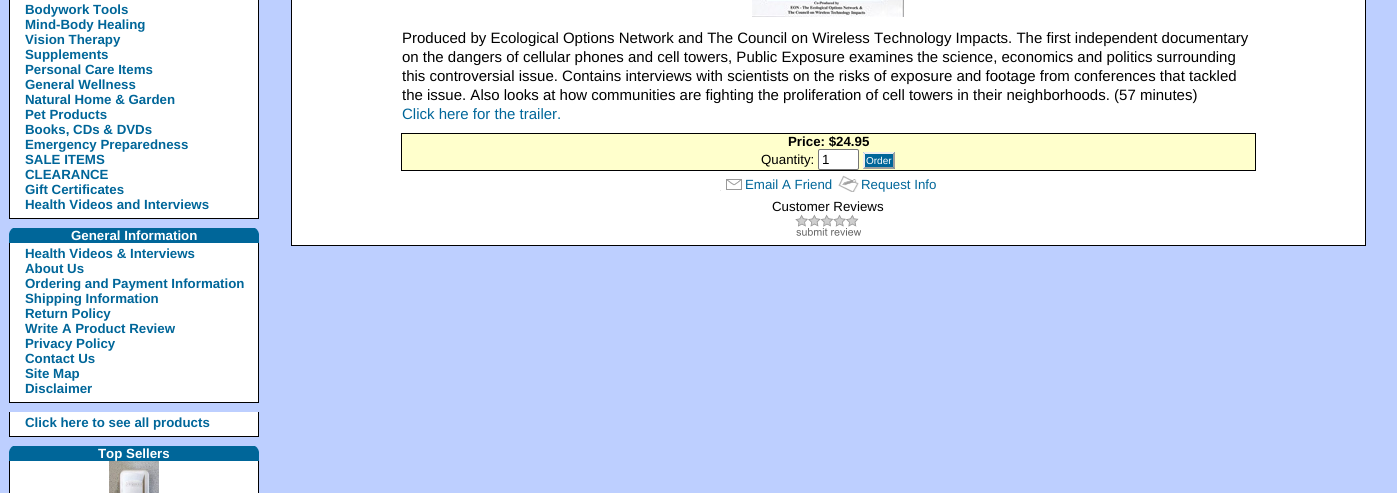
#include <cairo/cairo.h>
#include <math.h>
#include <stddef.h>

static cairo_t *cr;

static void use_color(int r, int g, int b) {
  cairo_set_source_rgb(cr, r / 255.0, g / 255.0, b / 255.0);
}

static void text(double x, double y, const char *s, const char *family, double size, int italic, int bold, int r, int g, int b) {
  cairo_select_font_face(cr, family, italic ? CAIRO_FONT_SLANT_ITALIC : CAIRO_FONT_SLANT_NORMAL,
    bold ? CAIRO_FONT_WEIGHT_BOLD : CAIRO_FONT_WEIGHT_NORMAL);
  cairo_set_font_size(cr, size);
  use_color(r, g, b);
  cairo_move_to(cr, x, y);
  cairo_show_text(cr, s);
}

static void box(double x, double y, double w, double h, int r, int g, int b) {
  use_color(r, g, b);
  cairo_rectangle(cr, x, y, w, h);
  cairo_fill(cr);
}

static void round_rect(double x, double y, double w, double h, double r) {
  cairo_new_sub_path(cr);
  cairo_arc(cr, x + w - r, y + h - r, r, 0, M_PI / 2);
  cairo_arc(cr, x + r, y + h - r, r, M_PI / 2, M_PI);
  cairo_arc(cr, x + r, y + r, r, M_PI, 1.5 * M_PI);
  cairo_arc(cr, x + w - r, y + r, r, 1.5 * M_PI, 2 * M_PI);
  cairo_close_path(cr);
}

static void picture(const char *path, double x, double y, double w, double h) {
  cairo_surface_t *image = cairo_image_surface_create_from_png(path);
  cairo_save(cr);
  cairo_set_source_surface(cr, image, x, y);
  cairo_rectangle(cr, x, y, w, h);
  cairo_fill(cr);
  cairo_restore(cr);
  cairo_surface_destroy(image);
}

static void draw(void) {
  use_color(189, 207, 255);
  cairo_paint(cr);
  box(10, 0, 248, 218, 255, 255, 255);
  box(258, 0, 1, 219, 0, 0, 0);
  box(9, 218, 250, 1, 0, 0, 0);
  box(9, 0, 1, 219, 0, 0, 0);
  picture("img_01.png", 9, 228, 250, 15);
  box(10, 243, 248, 159, 255, 255, 255);
  box(258, 243, 1, 160, 0, 0, 0);
  box(9, 402, 250, 1, 0, 0, 0);
  box(9, 243, 1, 160, 0, 0, 0);
  box(10, 412, 248, 24, 255, 255, 255);
  box(258, 412, 1, 25, 0, 0, 0);
  box(9, 436, 250, 1, 0, 0, 0);
  box(9, 412, 1, 25, 0, 0, 0);
  picture("img_01.png", 9, 446, 250, 15);
  box(10, 461, 248, 32, 255, 255, 255);
  box(258, 461, 1, 32, 0, 0, 0);
  box(9, 461, 1, 32, 0, 0, 0);
  picture("img_02.png", 109, 461, 50, 32);
  use_color(255, 255, 255);
  cairo_rectangle(cr, 291.5, -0.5, 1074, 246);
  cairo_fill_preserve(cr);
  use_color(0, 0, 0);
  cairo_set_line_width(cr, 1);
  cairo_stroke(cr);
  picture("img_03.png", 752, 0, 152, 17);
  use_color(255, 255, 204);
  cairo_rectangle(cr, 401.5, 133.5, 854, 37);
  cairo_fill_preserve(cr);
  use_color(0, 0, 0);
  cairo_stroke(cr);
  use_color(255, 255, 255);
  round_rect(818.5, 149.5, 40, 20, 1.5);
  cairo_fill_preserve(cr);
  use_color(118, 118, 118);
  cairo_stroke(cr);
  box(863, 152, 32, 17, 0, 102, 153);
  use_color(238, 238, 238);
  cairo_new_path(cr);
  cairo_move_to(cr, 863, 152);
  cairo_line_to(cr, 895, 152);
  cairo_line_to(cr, 893, 154);
  cairo_line_to(cr, 865, 154);
  cairo_close_path(cr);
  cairo_fill(cr);
  use_color(159, 159, 159);
  cairo_new_path(cr);
  cairo_move_to(cr, 895, 152);
  cairo_line_to(cr, 895, 169);
  cairo_line_to(cr, 893, 167);
  cairo_line_to(cr, 893, 154);
  cairo_close_path(cr);
  cairo_fill(cr);
  cairo_new_path(cr);
  cairo_move_to(cr, 895, 169);
  cairo_line_to(cr, 863, 169);
  cairo_line_to(cr, 865, 167);
  cairo_line_to(cr, 893, 167);
  cairo_close_path(cr);
  cairo_fill(cr);
  use_color(238, 238, 238);
  cairo_new_path(cr);
  cairo_move_to(cr, 863, 169);
  cairo_line_to(cr, 863, 152);
  cairo_line_to(cr, 865, 154);
  cairo_line_to(cr, 865, 167);
  cairo_close_path(cr);
  cairo_fill(cr);
  picture("img_04.png", 720, 179, 22, 12);
  picture("img_05.png", 838, 175, 21, 17);
  picture("img_06.png", 795, 214, 66, 22);
  text(25, 14, "Bodywork Tools", "Liberation Sans", 13.3, 0, 1, 0, 102, 153);
  text(25, 29, "Mind-Body Healing", "Liberation Sans", 13.3, 0, 1, 0, 102, 153);
  text(25, 44, "Vision Therapy", "Liberation Sans", 13.3, 0, 1, 0, 102, 153);
  text(25, 59, "Supplements", "Liberation Sans", 13.3, 0, 1, 0, 102, 153);
  text(25, 74, "Personal Care Items", "Liberation Sans", 13.3, 0, 1, 0, 102, 153);
  text(25, 89, "General Wellness", "Liberation Sans", 13.3, 0, 1, 0, 102, 153);
  text(25, 104, "Natural Home & Garden", "Liberation Sans", 13.3, 0, 1, 0, 102, 153);
  text(25, 119, "Pet Products", "Liberation Sans", 13.3, 0, 1, 0, 102, 153);
  text(25, 134, "Books, CDs & DVDs", "Liberation Sans", 13.3, 0, 1, 0, 102, 153);
  text(25, 149, "Emergency Preparedness", "Liberation Sans", 13.3, 0, 1, 0, 102, 153);
  text(25, 164, "SALE ITEMS", "Liberation Sans", 13.3, 0, 1, 0, 102, 153);
  text(25, 179, "CLEARANCE", "Liberation Sans", 13.3, 0, 1, 0, 102, 153);
  text(25, 194, "Gift Certificates", "Liberation Sans", 13.3, 0, 1, 0, 102, 153);
  text(25, 209, "Health Videos and Interviews", "Liberation Sans", 13.3, 0, 1, 0, 102, 153);
  text(71, 240, "General Information", "Liberation Sans", 13.3, 0, 1, 255, 255, 255);
  text(25, 258, "Health Videos & Interviews", "Liberation Sans", 13.3, 0, 1, 0, 102, 153);
  text(25, 273, "About Us", "Liberation Sans", 13.3, 0, 1, 0, 102, 153);
  text(25, 288, "Ordering and Payment Information", "Liberation Sans", 13.3, 0, 1, 0, 102, 153);
  text(25, 303, "Shipping Information", "Liberation Sans", 13.3, 0, 1, 0, 102, 153);
  text(25, 318, "Return Policy", "Liberation Sans", 13.3, 0, 1, 0, 102, 153);
  text(25, 333, "Write A Product Review", "Liberation Sans", 13.3, 0, 1, 0, 102, 153);
  text(25, 348, "Privacy Policy", "Liberation Sans", 13.3, 0, 1, 0, 102, 153);
  text(25, 363, "Contact Us", "Liberation Sans", 13.3, 0, 1, 0, 102, 153);
  text(25, 378, "Site Map", "Liberation Sans", 13.3, 0, 1, 0, 102, 153);
  text(25, 393, "Disclaimer", "Liberation Sans", 13.3, 0, 1, 0, 102, 153);
  text(25, 427, "Click here to see all products", "Liberation Sans", 13.3, 0, 1, 0, 102, 153);
  text(98, 458, "Top Sellers", "Liberation Sans", 13.3, 0, 1, 255, 255, 255);
  text(402, 43, "Produced by Ecological Options Network and The Council on Wireless Technology Impacts. The first independent documentary", "Liberation Sans", 15, 0, 0, 0, 0, 0);
  text(402, 62, "on the dangers of cellular phones and cell towers, Public Exposure examines the science, economics and politics surrounding", "Liberation Sans", 15, 0, 0, 0, 0, 0);
  text(402, 81, "this controversial issue. Contains interviews with scientists on the risks of exposure and footage from conferences that tackled", "Liberation Sans", 15, 0, 0, 0, 0, 0);
  text(402, 100, "the issue. Also looks at how communities are fighting the proliferation of cell towers in their neighborhoods. (57 minutes)", "Liberation Sans", 15, 0, 0, 0, 0, 0);
  text(402, 119, "Click here for the trailer.", "Liberation Sans", 15, 0, 0, 0, 102, 153);
  text(788, 146, "Price: $24.95", "Liberation Sans", 13.3, 0, 1, 0, 0, 0);
  text(761, 164, "Quantity:", "Liberation Sans", 13.3, 0, 0, 0, 0, 0);
  text(822, 164, "1", "Liberation Sans", 13.3, 0, 0, 0, 0, 0);
  text(866, 164, "Order", "Liberation Sans", 10, 0, 0, 255, 255, 255);
  text(745, 189, "Email A Friend", "Liberation Sans", 13.3, 0, 0, 0, 102, 153);
  text(861, 189, "Request Info", "Liberation Sans", 13.3, 0, 0, 0, 102, 153);
  text(772, 211, "Customer Reviews", "Liberation Sans", 13.3, 0, 0, 0, 0, 0);
}

int main(void) {
  cairo_surface_t *surface = cairo_image_surface_create(CAIRO_FORMAT_RGB24, 1397, 493);
  cr = cairo_create(surface);
  cairo_font_options_t *options = cairo_font_options_create();
  cairo_font_options_set_hint_metrics(options, CAIRO_HINT_METRICS_OFF);
  cairo_font_options_set_hint_style(options, CAIRO_HINT_STYLE_NONE);
  cairo_set_font_options(cr, options);
  cairo_set_miter_limit(cr, 4);
  draw();
  cairo_surface_write_to_png(surface, "out.png");
  cairo_font_options_destroy(options);
  cairo_destroy(cr);
  cairo_surface_destroy(surface);
  return 0;
}
